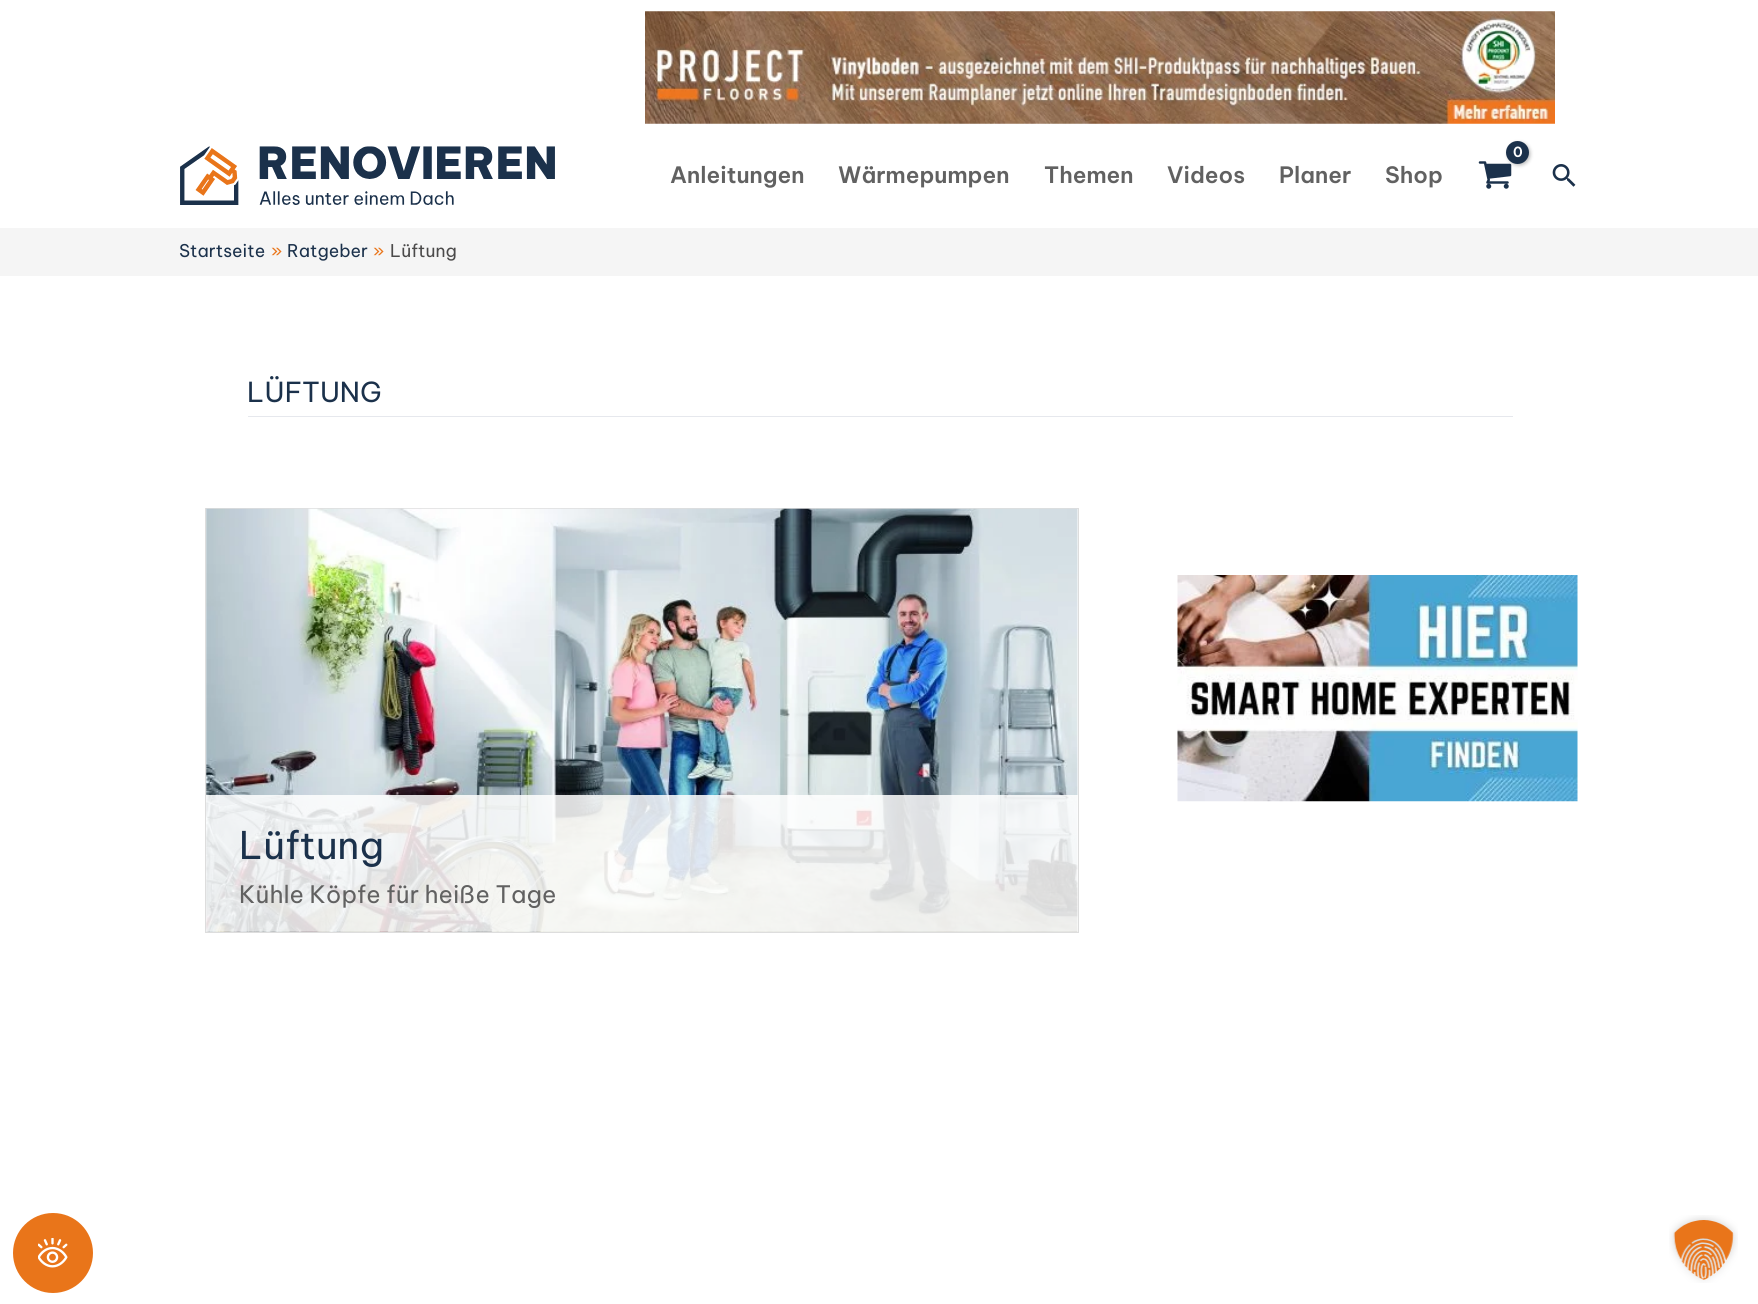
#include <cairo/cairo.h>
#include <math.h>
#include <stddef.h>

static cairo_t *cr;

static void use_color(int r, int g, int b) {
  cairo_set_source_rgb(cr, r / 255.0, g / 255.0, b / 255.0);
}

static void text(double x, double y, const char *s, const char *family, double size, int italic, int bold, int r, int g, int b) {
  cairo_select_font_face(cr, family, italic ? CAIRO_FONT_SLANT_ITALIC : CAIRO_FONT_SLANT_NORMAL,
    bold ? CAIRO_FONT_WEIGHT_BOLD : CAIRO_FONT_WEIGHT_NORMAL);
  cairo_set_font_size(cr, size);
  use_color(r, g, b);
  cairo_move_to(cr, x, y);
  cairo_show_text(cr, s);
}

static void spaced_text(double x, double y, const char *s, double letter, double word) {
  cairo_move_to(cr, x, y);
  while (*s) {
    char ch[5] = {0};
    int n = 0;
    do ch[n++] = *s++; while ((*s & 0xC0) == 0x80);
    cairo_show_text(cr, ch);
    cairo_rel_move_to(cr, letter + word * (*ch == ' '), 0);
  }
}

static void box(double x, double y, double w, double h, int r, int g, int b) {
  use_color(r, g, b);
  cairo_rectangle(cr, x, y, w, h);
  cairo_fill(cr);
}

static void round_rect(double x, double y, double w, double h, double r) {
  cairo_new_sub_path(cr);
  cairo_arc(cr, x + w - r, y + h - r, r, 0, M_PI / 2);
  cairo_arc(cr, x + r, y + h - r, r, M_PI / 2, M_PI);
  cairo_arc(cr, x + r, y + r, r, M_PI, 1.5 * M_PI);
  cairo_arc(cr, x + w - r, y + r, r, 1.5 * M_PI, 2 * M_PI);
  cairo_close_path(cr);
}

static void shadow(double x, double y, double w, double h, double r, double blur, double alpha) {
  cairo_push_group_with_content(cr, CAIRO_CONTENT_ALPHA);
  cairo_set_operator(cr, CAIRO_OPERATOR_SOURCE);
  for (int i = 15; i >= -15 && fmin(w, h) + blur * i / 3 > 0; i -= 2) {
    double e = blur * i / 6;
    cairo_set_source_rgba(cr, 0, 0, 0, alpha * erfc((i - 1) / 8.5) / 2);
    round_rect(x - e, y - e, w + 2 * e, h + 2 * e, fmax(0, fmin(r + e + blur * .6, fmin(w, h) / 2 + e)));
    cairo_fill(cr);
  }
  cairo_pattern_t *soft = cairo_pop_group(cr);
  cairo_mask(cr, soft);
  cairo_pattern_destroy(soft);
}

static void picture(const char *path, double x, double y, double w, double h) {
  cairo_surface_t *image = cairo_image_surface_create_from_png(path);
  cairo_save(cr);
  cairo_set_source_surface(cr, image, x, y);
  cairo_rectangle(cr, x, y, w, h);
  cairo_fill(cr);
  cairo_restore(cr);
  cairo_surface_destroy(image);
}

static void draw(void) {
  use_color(255, 255, 255);
  cairo_paint(cr);
  picture("img_01.png", 645, 11, 910, 113);
  picture("img_02.png", 180, 146, 375, 59);
  picture("img_03.png", 1478, 161, 34, 28);
  use_color(0, 0, 0);
  shadow(1508, 143, 22, 22, 11, 2, 0.3);
  use_color(27, 49, 75);
  cairo_arc(cr, 1517.5, 152.5, 11.5, 0, 2 * M_PI);
  cairo_fill(cr);
  picture("img_04.png", 1552, 164, 24, 23);
  box(0, 228, 1758, 48, 245, 245, 245);
  box(248, 416, 1265, 1, 230, 232, 237);
  picture("img_05.png", 1177, 575, 401, 227);
  cairo_rectangle(cr, 205.5, 508.5, 873, 424);
  use_color(221, 221, 221);
  cairo_set_line_width(cr, 1);
  cairo_stroke(cr);
  picture("img_06.png", 206, 508, 872, 424);
  cairo_set_source_rgba(cr, 1, 1, 1, 0.85);
  cairo_rectangle(cr, 206, 795, 872, 136);
  cairo_fill(cr);
  use_color(233, 117, 26);
  cairo_arc(cr, 53, 1253, 40, 0, 2 * M_PI);
  cairo_fill(cr);
  picture("img_07.png", 38, 1238, 30, 30);
  picture("img_08.png", 1669, 1215, 69, 68);
  cairo_select_font_face(cr, "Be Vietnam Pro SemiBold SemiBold", CAIRO_FONT_SLANT_NORMAL, CAIRO_FONT_WEIGHT_NORMAL);
  cairo_set_font_size(cr, 14);
  use_color(255, 255, 255);
  spaced_text(1513, 157, "0", -1, 0);
  text(670, 183, "Anleitungen", "Be Vietnam Pro SemiBold SemiBold", 22.5, 0, 0, 97, 97, 97);
  text(838, 183, "Wärmepumpen", "Be Vietnam Pro SemiBold SemiBold", 22.5, 0, 0, 97, 97, 97);
  text(1044, 183, "Themen", "Be Vietnam Pro SemiBold SemiBold", 22.5, 0, 0, 97, 97, 97);
  text(1167, 183, "Videos", "Be Vietnam Pro SemiBold SemiBold", 22.5, 0, 0, 97, 97, 97);
  text(1279, 183, "Planer", "Be Vietnam Pro SemiBold SemiBold", 22.5, 0, 0, 97, 97, 97);
  text(1385, 183, "Shop", "Be Vietnam Pro SemiBold SemiBold", 22.5, 0, 0, 97, 97, 97);
  text(179, 257, "Startseite", "Be Vietnam Pro", 17.5, 0, 0, 27, 49, 75);
  text(271, 257, "»", "Be Vietnam Pro", 17.5, 0, 0, 233, 117, 26);
  text(287, 257, "Ratgeber", "Be Vietnam Pro", 17.5, 0, 0, 27, 49, 75);
  text(373, 257, "»", "Be Vietnam Pro", 17.5, 0, 0, 233, 117, 26);
  text(390, 257, "Lüftung", "Be Vietnam Pro", 17.5, 0, 0, 75, 74, 74);
  text(247, 402, "LÜFTUNG", "Be Vietnam Pro", 27.5, 0, 0, 27, 49, 75);
  text(239, 859, "Lüftung", "Be Vietnam Pro", 38, 0, 0, 27, 49, 75);
  text(239, 903, "Kühle Köpfe für heiße Tage", "Be Vietnam Pro", 24, 0, 0, 97, 97, 97);
}

int main(void) {
  cairo_surface_t *surface = cairo_image_surface_create(CAIRO_FORMAT_RGB24, 1758, 1304);
  cr = cairo_create(surface);
  cairo_font_options_t *options = cairo_font_options_create();
  cairo_font_options_set_hint_metrics(options, CAIRO_HINT_METRICS_OFF);
  cairo_font_options_set_hint_style(options, CAIRO_HINT_STYLE_NONE);
  cairo_set_font_options(cr, options);
  cairo_set_miter_limit(cr, 4);
  draw();
  cairo_surface_write_to_png(surface, "out.png");
  cairo_font_options_destroy(options);
  cairo_destroy(cr);
  cairo_surface_destroy(surface);
  return 0;
}
